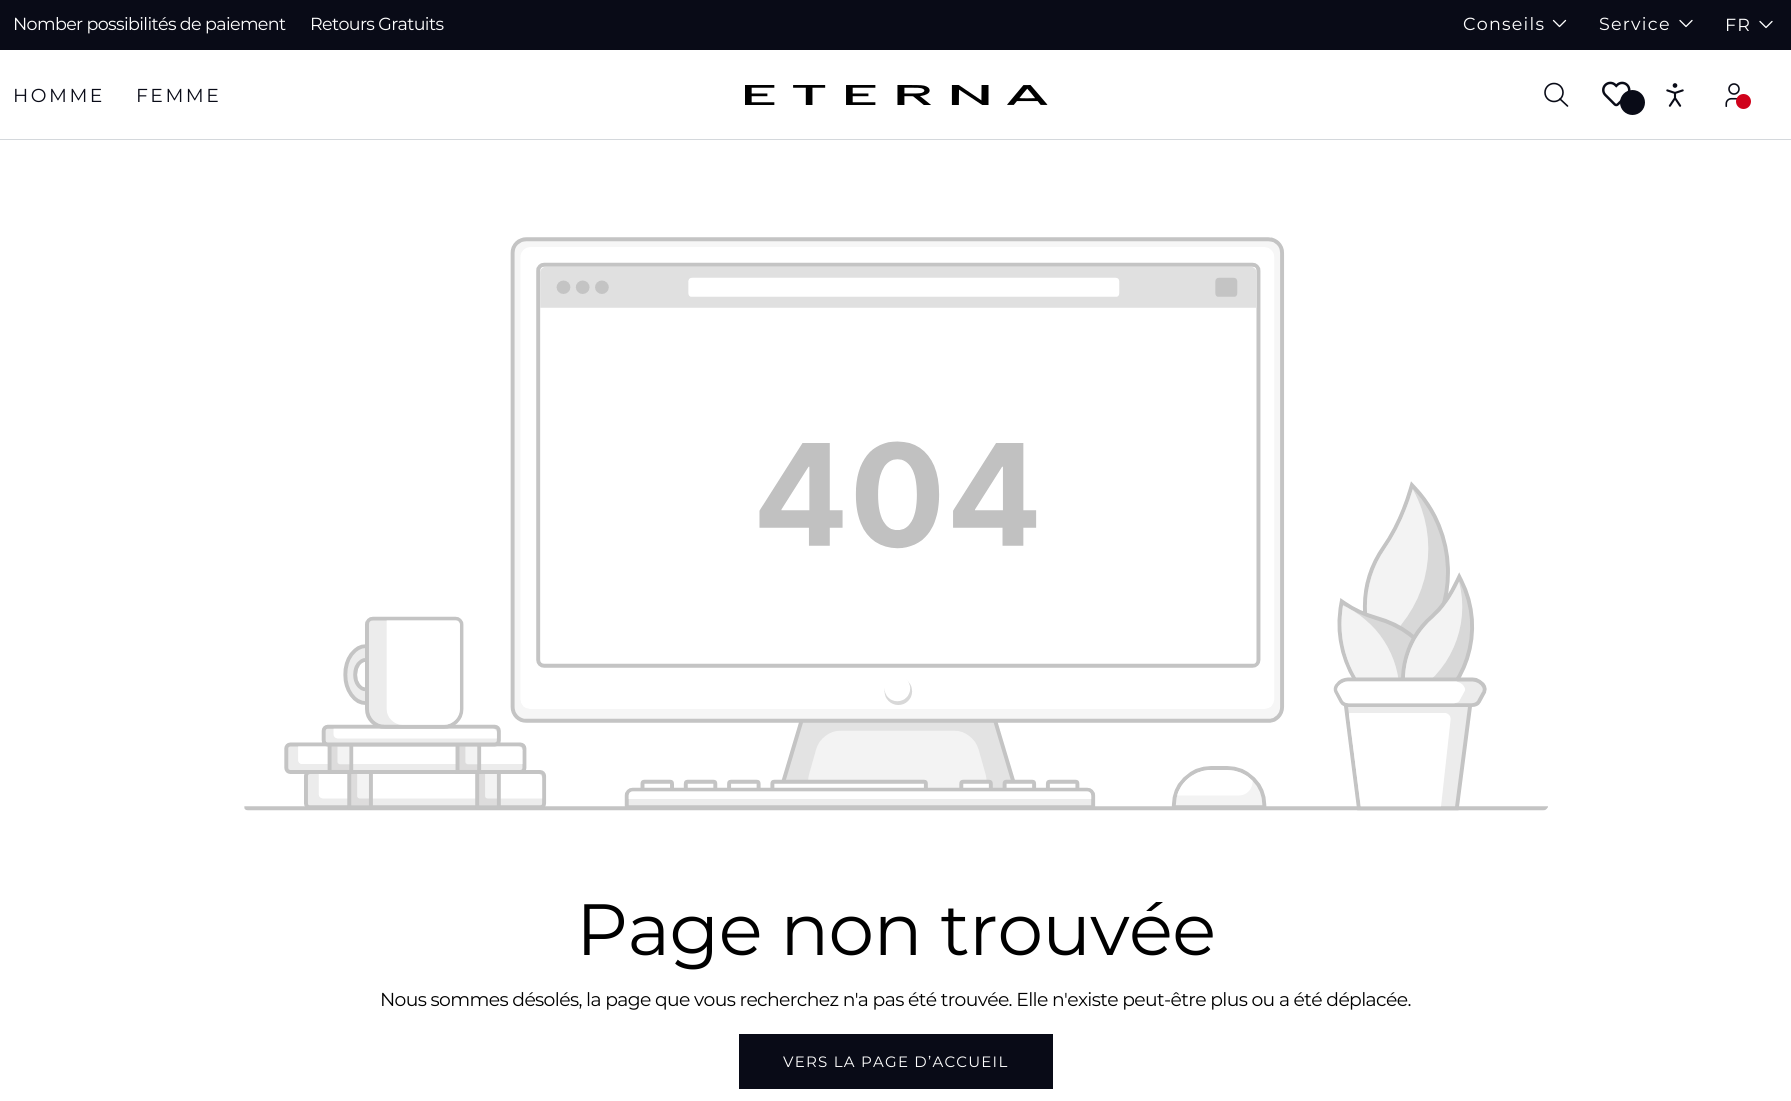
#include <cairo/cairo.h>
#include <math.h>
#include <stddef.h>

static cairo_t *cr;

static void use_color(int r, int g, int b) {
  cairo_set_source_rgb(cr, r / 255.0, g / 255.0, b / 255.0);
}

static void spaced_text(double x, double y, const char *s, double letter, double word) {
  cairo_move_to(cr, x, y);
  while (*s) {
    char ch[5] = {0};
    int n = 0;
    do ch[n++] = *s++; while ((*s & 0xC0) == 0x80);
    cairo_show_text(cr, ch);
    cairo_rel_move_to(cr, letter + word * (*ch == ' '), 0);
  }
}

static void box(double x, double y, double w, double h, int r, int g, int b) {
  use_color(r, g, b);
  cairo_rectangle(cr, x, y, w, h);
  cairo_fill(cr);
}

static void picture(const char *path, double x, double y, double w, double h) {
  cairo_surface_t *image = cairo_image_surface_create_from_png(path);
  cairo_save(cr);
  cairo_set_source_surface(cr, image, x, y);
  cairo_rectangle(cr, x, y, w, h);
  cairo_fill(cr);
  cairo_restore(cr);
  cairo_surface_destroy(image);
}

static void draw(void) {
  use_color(255, 255, 255);
  cairo_paint(cr);
  box(0, 0, 1791, 50, 9, 11, 23);
  cairo_new_path(cr);
  cairo_move_to(cr, 1553.5, 20.5);
  cairo_line_to(cr, 1559.5, 26.5);
  cairo_line_to(cr, 1565.5, 20.5);
  use_color(255, 255, 255);
  cairo_set_line_width(cr, 1.3);
  cairo_set_line_cap(cr, CAIRO_LINE_CAP_ROUND);
  cairo_set_line_join(cr, CAIRO_LINE_JOIN_ROUND);
  cairo_stroke(cr);
  cairo_new_path(cr);
  cairo_move_to(cr, 1680, 20.5);
  cairo_line_to(cr, 1686, 26.5);
  cairo_line_to(cr, 1692, 20.5);
  cairo_stroke(cr);
  cairo_new_path(cr);
  cairo_move_to(cr, 1760, 21.5);
  cairo_line_to(cr, 1766, 27.5);
  cairo_line_to(cr, 1772, 21.5);
  cairo_stroke(cr);
  box(0, 139, 1791, 1, 212, 216, 220);
  picture("img_01.png", 745, 85, 303, 20);
  cairo_arc(cr, 1554, 92.5, 9, 0, 2 * M_PI);
  use_color(9, 11, 23);
  cairo_set_line_width(cr, 1.6);
  cairo_set_line_cap(cr, CAIRO_LINE_CAP_BUTT);
  cairo_set_line_join(cr, CAIRO_LINE_JOIN_MITER);
  cairo_stroke(cr);
  cairo_new_path(cr);
  cairo_move_to(cr, 1567.5, 106);
  cairo_line_to(cr, 1560, 99);
  cairo_set_line_cap(cr, CAIRO_LINE_CAP_ROUND);
  cairo_set_line_join(cr, CAIRO_LINE_JOIN_ROUND);
  cairo_stroke(cr);
  picture("img_02.png", 1602, 81, 29, 26);
  cairo_arc(cr, 1632.5, 102.5, 12.5, 0, 2 * M_PI);
  cairo_fill(cr);
  picture("img_03.png", 1666, 83, 18, 24);
  picture("img_04.png", 1725, 83, 15, 24);
  use_color(208, 2, 27);
  cairo_arc(cr, 1743.5, 101.5, 7.5, 0, 2 * M_PI);
  cairo_fill(cr);
  picture("img_05.png", 244, 237, 1304, 574);
  box(739, 1034, 314, 55, 9, 11, 23);
  cairo_select_font_face(cr, "Montserrat", CAIRO_FONT_SLANT_NORMAL, CAIRO_FONT_WEIGHT_NORMAL);
  cairo_set_font_size(cr, 17.5);
  use_color(255, 255, 255);
  spaced_text(13, 30, "Nomber possibilités de paiement", -0.62, 0);
  spaced_text(310, 30, "Retours Gratuits", -0.62, 0);
  spaced_text(1463, 30, "Conseils", 1.25, 0);
  spaced_text(1599, 30, "Service", 1.25, 0);
  spaced_text(1725, 31, "FR", 1.25, 0);
  cairo_set_font_size(cr, 18.75);
  use_color(9, 11, 23);
  spaced_text(13, 102, "HOMME", 2.5, 0);
  spaced_text(136, 102, "FEMME", 2.5, 0);
  cairo_set_font_size(cr, 72.5);
  use_color(0, 0, 0);
  spaced_text(576, 955, "Page non trouvée", -0.62, 0);
  cairo_set_font_size(cr, 18.75);
  spaced_text(380, 1006, "Nous sommes désolés, la page que vous recherchez n'a pas été trouvée. Elle n'existe peut-être plus ou a été déplacée.", -0.62, 0);
  cairo_set_font_size(cr, 15);
  use_color(255, 255, 255);
  spaced_text(783, 1067, "VERS LA PAGE D’ACCUEIL", 1.25, 0);
}

int main(void) {
  cairo_surface_t *surface = cairo_image_surface_create(CAIRO_FORMAT_RGB24, 1791, 1101);
  cr = cairo_create(surface);
  cairo_font_options_t *options = cairo_font_options_create();
  cairo_font_options_set_hint_metrics(options, CAIRO_HINT_METRICS_OFF);
  cairo_font_options_set_hint_style(options, CAIRO_HINT_STYLE_NONE);
  cairo_set_font_options(cr, options);
  cairo_set_miter_limit(cr, 4);
  draw();
  cairo_surface_write_to_png(surface, "out.png");
  cairo_font_options_destroy(options);
  cairo_destroy(cr);
  cairo_surface_destroy(surface);
  return 0;
}
